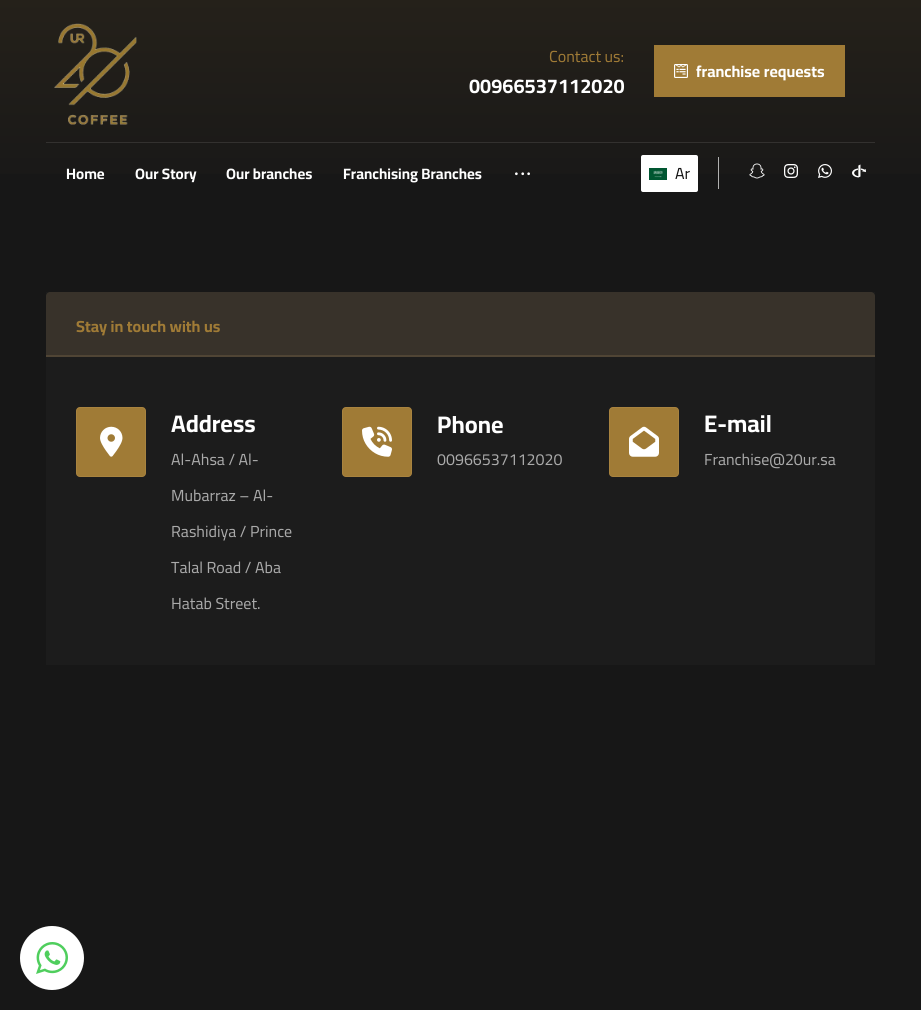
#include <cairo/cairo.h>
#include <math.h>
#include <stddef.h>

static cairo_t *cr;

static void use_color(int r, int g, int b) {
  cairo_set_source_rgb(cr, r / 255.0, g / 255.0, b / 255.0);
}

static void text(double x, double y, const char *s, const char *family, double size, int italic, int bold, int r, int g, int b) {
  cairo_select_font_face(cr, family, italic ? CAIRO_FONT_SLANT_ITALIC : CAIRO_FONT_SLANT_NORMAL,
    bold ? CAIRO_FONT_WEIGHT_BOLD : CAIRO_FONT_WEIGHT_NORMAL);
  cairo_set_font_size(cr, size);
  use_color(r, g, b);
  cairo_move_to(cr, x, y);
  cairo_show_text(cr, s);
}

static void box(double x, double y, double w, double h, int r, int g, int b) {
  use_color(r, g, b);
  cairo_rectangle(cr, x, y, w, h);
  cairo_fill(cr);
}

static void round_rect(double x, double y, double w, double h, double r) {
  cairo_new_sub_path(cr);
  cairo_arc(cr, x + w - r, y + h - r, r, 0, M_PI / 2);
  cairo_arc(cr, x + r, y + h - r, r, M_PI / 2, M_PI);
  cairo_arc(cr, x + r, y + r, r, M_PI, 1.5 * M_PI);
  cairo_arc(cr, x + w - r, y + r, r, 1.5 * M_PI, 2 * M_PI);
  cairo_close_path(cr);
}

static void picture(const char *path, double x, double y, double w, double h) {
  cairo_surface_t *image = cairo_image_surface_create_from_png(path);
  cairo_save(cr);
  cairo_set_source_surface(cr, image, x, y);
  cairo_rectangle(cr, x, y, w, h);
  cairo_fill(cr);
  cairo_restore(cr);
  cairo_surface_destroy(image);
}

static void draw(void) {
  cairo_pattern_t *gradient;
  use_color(23, 23, 23);
  cairo_paint(cr);
  gradient = cairo_pattern_create_linear(461, 0, 461, 212);
  cairo_pattern_add_color_stop_rgba(gradient, 0, 0.145, 0.129, 0.102, 1);
  cairo_pattern_add_color_stop_rgba(gradient, 1, 0.09, 0.09, 0.09, 1);
  cairo_set_source(cr, gradient);
  cairo_pattern_destroy(gradient);
  cairo_rectangle(cr, 0, 0, 921, 174);
  cairo_fill(cr);
  box(46, 142, 829, 1, 51, 49, 47);
  picture("img_01.png", 54, 23, 83, 102);
  box(654, 45, 191, 52, 160, 123, 54);
  picture("img_02.png", 674, 64, 14, 14);
  picture("img_03.png", 515, 172, 15, 4);
  use_color(255, 255, 255);
  round_rect(641, 155, 57, 37, 2);
  cairo_fill(cr);
  picture("img_04.png", 649, 168, 18, 12);
  box(718, 157, 1, 32, 177, 177, 176);
  picture("img_05.png", 749, 163, 16, 16);
  picture("img_06.png", 784, 164, 14, 14);
  picture("img_07.png", 818, 164, 14, 14);
  picture("img_08.png", 852, 164, 14, 14);
  box(46, 292, 829, 373, 28, 28, 28);
  use_color(56, 50, 42);
  cairo_new_path(cr);
  cairo_move_to(cr, 50, 292);
  cairo_line_to(cr, 871, 292);
  cairo_curve_to(cr, 873, 292, 875, 294, 875, 296);
  cairo_line_to(cr, 875, 357);
  cairo_line_to(cr, 46, 357);
  cairo_line_to(cr, 46, 296);
  cairo_curve_to(cr, 46, 294, 48, 292, 50, 292);
  cairo_close_path(cr);
  cairo_fill(cr);
  box(46, 355, 829, 2, 80, 69, 53);
  use_color(160, 123, 54);
  round_rect(76, 407, 70, 70, 4);
  cairo_fill(cr);
  round_rect(76.5, 407.5, 69, 69, 3.5);
  cairo_set_source_rgba(cr, 0.847, 0.682, 0.463, 0.15);
  cairo_set_line_width(cr, 1);
  cairo_stroke(cr);
  picture("img_09.png", 100, 426, 23, 31);
  use_color(160, 123, 54);
  round_rect(342, 407, 70, 70, 4);
  cairo_fill(cr);
  round_rect(342.5, 407.5, 69, 69, 3.5);
  cairo_set_source_rgba(cr, 0.847, 0.682, 0.463, 0.15);
  cairo_stroke(cr);
  picture("img_10.png", 362, 426, 30, 31);
  use_color(160, 123, 54);
  round_rect(609, 407, 70, 70, 4);
  cairo_fill(cr);
  round_rect(609.5, 407.5, 69, 69, 3.5);
  cairo_set_source_rgba(cr, 0.847, 0.682, 0.463, 0.15);
  cairo_stroke(cr);
  picture("img_11.png", 629, 426, 30, 31);
  use_color(255, 255, 255);
  cairo_arc(cr, 52, 958, 32, 0, 2 * M_PI);
  cairo_fill(cr);
  picture("img_12.png", 36, 942, 32, 32);
  text(549, 62, "Contact us:", "Cairo", 16, 0, 0, 160, 123, 54);
  text(469, 93, "00966537112020", "Cairo", 20, 0, 1, 255, 255, 255);
  text(696, 77, "franchise requests", "Cairo", 16, 0, 1, 255, 255, 255);
  text(66, 179, "Home", "Cairo", 15, 0, 1, 255, 255, 255);
  text(135, 179, "Our Story", "Cairo", 15, 0, 1, 255, 255, 255);
  text(226, 179, "Our branches", "Cairo", 15, 0, 1, 255, 255, 255);
  text(343, 179, "Franchising Branches", "Cairo", 15, 0, 1, 255, 255, 255);
  text(675, 179, "Ar", "Cairo", 16, 0, 0, 17, 17, 17);
  text(76, 332, "Stay in touch with us", "Cairo", 16, 0, 1, 160, 123, 54);
  text(171, 432, "Address", "Cairo", 24, 0, 1, 255, 255, 255);
  text(171, 465, "Al-Ahsa / Al-", "Cairo", 16, 0, 0, 170, 170, 170);
  text(171, 501, "Mubarraz – Al-", "Cairo", 16, 0, 0, 170, 170, 170);
  text(171, 537, "Rashidiya / Prince", "Cairo", 16, 0, 0, 170, 170, 170);
  text(171, 573, "Talal Road / Aba", "Cairo", 16, 0, 0, 170, 170, 170);
  text(171, 609, "Hatab Street.", "Cairo", 16, 0, 0, 170, 170, 170);
  text(437, 433, "Phone", "Cairo", 24, 0, 1, 255, 255, 255);
  text(437, 465, "00966537112020", "Cairo", 16, 0, 0, 170, 170, 170);
  text(704, 432, "E-mail", "Cairo", 24, 0, 1, 255, 255, 255);
  text(704, 465, "Franchise@20ur.sa", "Cairo", 16, 0, 0, 170, 170, 170);
}

int main(void) {
  cairo_surface_t *surface = cairo_image_surface_create(CAIRO_FORMAT_RGB24, 921, 1010);
  cr = cairo_create(surface);
  cairo_font_options_t *options = cairo_font_options_create();
  cairo_font_options_set_hint_metrics(options, CAIRO_HINT_METRICS_OFF);
  cairo_font_options_set_hint_style(options, CAIRO_HINT_STYLE_NONE);
  cairo_set_font_options(cr, options);
  cairo_set_miter_limit(cr, 4);
  draw();
  cairo_surface_write_to_png(surface, "out.png");
  cairo_font_options_destroy(options);
  cairo_destroy(cr);
  cairo_surface_destroy(surface);
  return 0;
}
